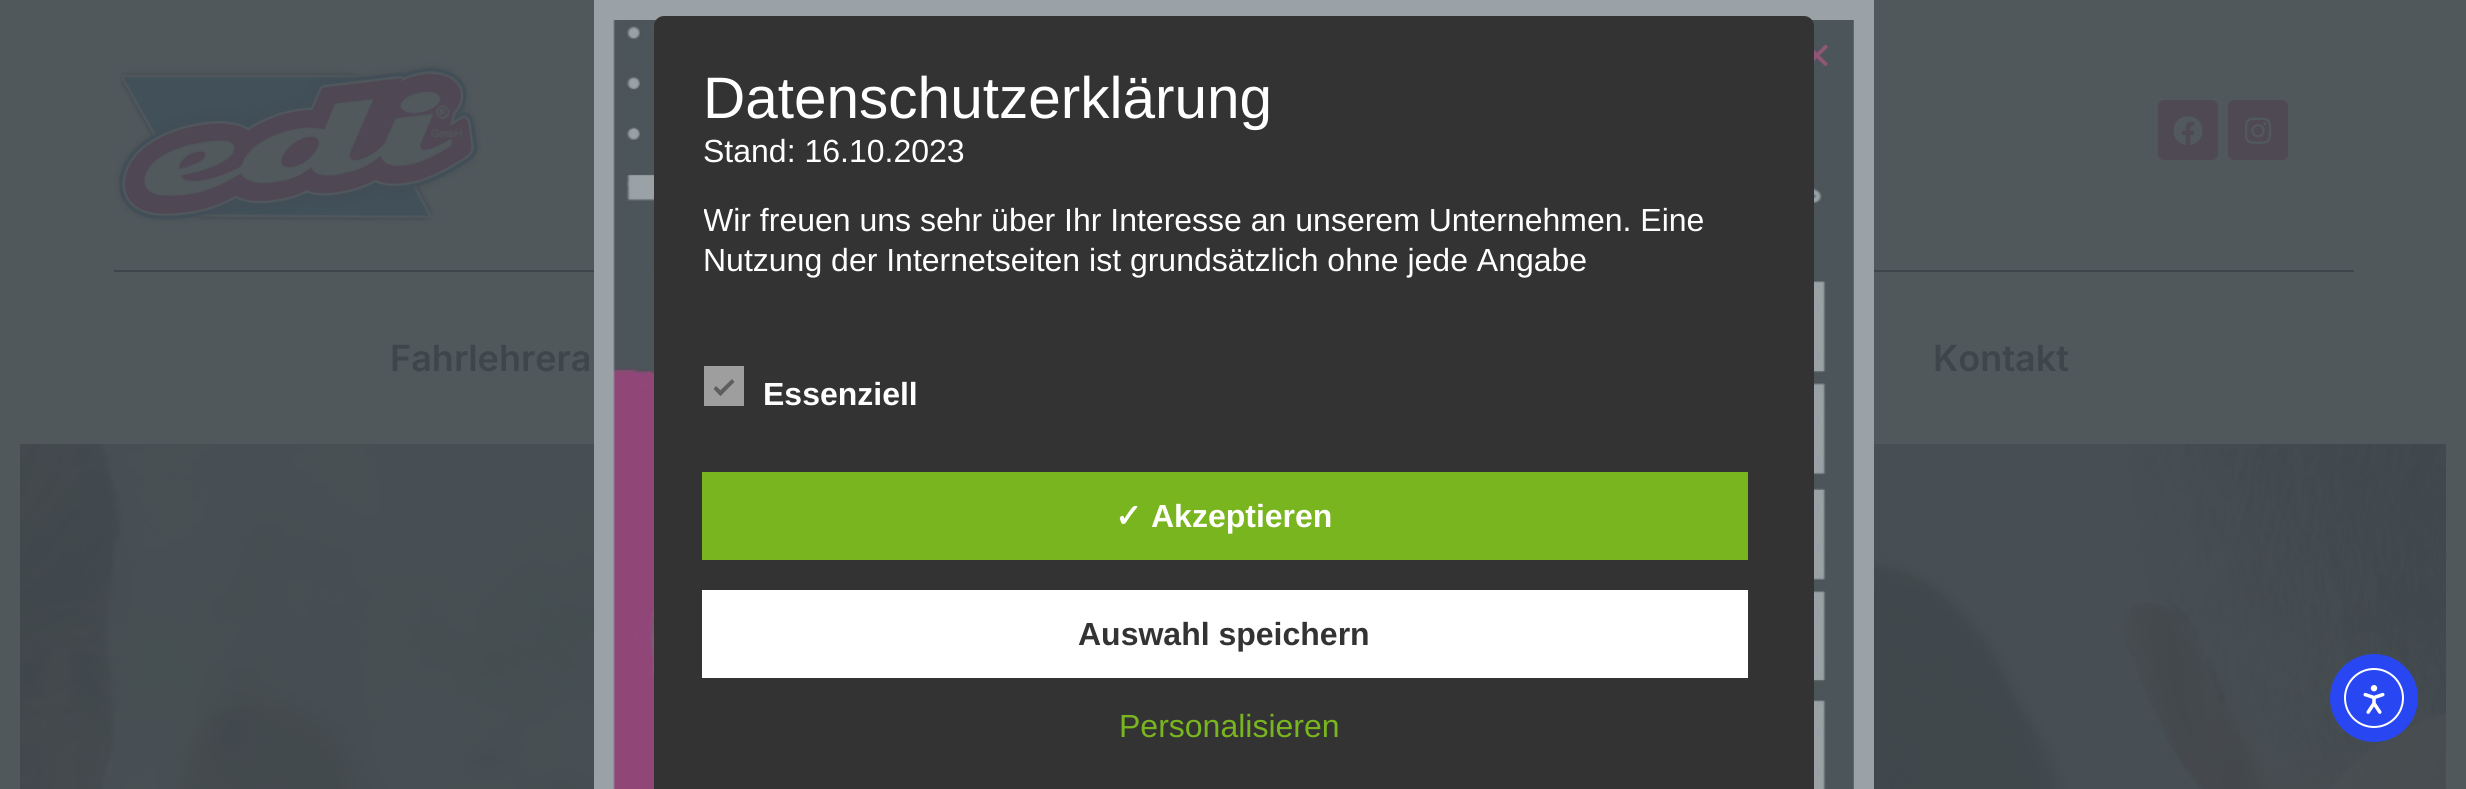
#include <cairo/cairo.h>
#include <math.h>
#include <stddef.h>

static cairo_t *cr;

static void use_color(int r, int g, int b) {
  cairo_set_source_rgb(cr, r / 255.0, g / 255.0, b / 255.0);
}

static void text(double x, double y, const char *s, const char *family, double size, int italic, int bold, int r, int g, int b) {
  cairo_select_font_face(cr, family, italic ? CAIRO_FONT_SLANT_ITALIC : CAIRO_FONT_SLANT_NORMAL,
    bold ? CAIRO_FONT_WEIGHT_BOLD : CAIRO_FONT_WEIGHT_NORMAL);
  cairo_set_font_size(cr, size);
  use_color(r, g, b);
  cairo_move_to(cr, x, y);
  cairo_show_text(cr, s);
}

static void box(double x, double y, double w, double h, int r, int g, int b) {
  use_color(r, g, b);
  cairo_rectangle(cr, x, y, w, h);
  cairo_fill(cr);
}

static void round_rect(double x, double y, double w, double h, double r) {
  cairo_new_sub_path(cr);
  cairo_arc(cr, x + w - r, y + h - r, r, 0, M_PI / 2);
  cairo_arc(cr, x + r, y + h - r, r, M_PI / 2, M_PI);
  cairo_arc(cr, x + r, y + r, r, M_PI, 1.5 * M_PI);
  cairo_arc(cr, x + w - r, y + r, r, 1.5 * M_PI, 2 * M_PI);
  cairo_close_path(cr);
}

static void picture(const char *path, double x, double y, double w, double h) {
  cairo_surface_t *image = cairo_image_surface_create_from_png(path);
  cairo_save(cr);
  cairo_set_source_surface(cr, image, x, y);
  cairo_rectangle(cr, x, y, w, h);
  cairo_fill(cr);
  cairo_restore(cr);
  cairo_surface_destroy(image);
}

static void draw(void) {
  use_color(80, 88, 92);
  cairo_paint(cr);
  box(114, 270, 2240, 2, 63, 70, 75);
  picture("img_06.png", 20, 444, 2426, 345);
  box(594, 0, 1280, 789, 155, 162, 167);
  picture("img_01.png", 613, 20, 1241, 769);
  picture("img_02.png", 1814, 44, 14, 22);
  use_color(51, 51, 51);
  round_rect(654, 16, 1160, 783, 10);
  cairo_fill(cr);
  box(704, 366, 40, 40, 158, 158, 158);
  use_color(94, 94, 94);
  cairo_new_path(cr);
  cairo_move_to(cr, 732, 379);
  cairo_line_to(cr, 734.5, 382);
  cairo_line_to(cr, 720.5, 396);
  cairo_line_to(cr, 717.5, 393);
  cairo_close_path(cr);
  cairo_fill(cr);
  cairo_new_path(cr);
  cairo_move_to(cr, 716, 386);
  cairo_line_to(cr, 723.5, 393);
  cairo_line_to(cr, 720.5, 396);
  cairo_line_to(cr, 713.5, 389);
  cairo_close_path(cr);
  cairo_fill(cr);
  box(702, 472, 1046, 88, 121, 181, 31);
  box(702, 590, 1046, 88, 255, 255, 255);
  picture("img_03.png", 114, 60, 368, 167);
  use_color(79, 73, 83);
  round_rect(2158, 100, 60, 60, 6);
  cairo_fill(cr);
  picture("img_04.png", 2173, 116, 30, 30);
  round_rect(2228, 100, 60, 60, 6);
  cairo_fill(cr);
  picture("img_05.png", 2244, 117, 28, 27);
  use_color(40, 71, 243);
  cairo_arc(cr, 2374, 698, 44, 0, 2 * M_PI);
  cairo_fill(cr);
  cairo_arc(cr, 2374, 698, 29, 0, 2 * M_PI);
  use_color(255, 255, 255);
  cairo_stroke(cr);
  picture("img_07.png", 2363, 685, 22, 29);
  text(703, 118, "Datenschutzerklärung", "Liberation Sans", 58.5, 0, 0, 255, 255, 255);
  text(703, 162, "Stand: 16.10.2023", "Liberation Sans", 32, 0, 0, 255, 255, 255);
  cairo_save(cr);
  cairo_rectangle(cr, 704, 66, 1080, 236);
  cairo_clip(cr);
  text(703, 231, "Wir freuen uns sehr über Ihr Interesse an unserem Unternehmen. Eine", "Liberation Sans", 32, 0, 0, 255, 255, 255);
  cairo_restore(cr);
  text(703, 271, "Nutzung der Internetseiten ist grundsätzlich ohne jede Angabe", "Liberation Sans", 32, 0, 0, 255, 255, 255);
  text(763, 405, "Essenziell", "Liberation Sans", 32, 0, 1, 255, 255, 255);
  text(1115, 527, "✓", "DejaVu Sans", 32, 0, 1, 255, 255, 255);
  text(1151, 527, "Akzeptieren", "Liberation Sans", 32, 0, 1, 255, 255, 255);
  text(1078, 645, "Auswahl speichern", "Liberation Sans", 32, 0, 1, 51, 51, 51);
  text(1119, 737, "Personalisieren", "Liberation Sans", 32, 0, 0, 121, 181, 31);
  text(390, 371, "Fahrlehrera", "Inter SemiBold", 36, 0, 0, 63, 70, 75);
  text(1933, 371, "Kontakt", "Inter SemiBold", 36, 0, 0, 63, 70, 75);
}

int main(void) {
  cairo_surface_t *surface = cairo_image_surface_create(CAIRO_FORMAT_RGB24, 2466, 789);
  cr = cairo_create(surface);
  cairo_font_options_t *options = cairo_font_options_create();
  cairo_font_options_set_hint_metrics(options, CAIRO_HINT_METRICS_OFF);
  cairo_font_options_set_hint_style(options, CAIRO_HINT_STYLE_NONE);
  cairo_set_font_options(cr, options);
  cairo_set_miter_limit(cr, 4);
  draw();
  cairo_surface_write_to_png(surface, "out.png");
  cairo_font_options_destroy(options);
  cairo_destroy(cr);
  cairo_surface_destroy(surface);
  return 0;
}
